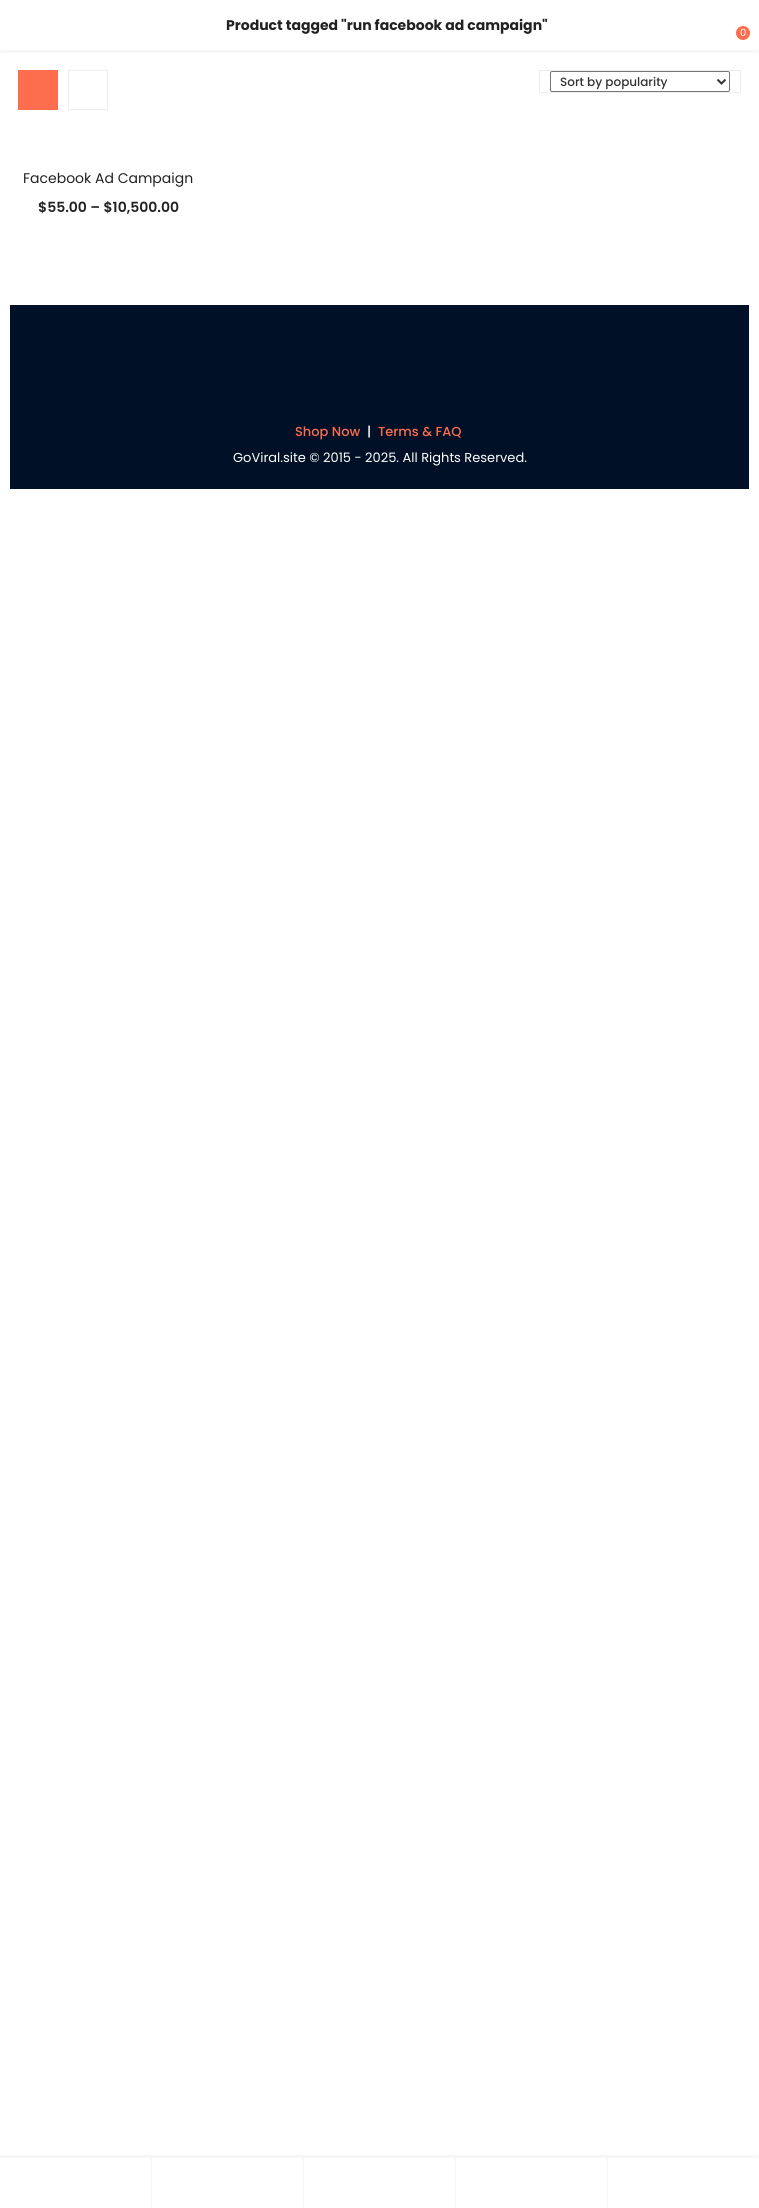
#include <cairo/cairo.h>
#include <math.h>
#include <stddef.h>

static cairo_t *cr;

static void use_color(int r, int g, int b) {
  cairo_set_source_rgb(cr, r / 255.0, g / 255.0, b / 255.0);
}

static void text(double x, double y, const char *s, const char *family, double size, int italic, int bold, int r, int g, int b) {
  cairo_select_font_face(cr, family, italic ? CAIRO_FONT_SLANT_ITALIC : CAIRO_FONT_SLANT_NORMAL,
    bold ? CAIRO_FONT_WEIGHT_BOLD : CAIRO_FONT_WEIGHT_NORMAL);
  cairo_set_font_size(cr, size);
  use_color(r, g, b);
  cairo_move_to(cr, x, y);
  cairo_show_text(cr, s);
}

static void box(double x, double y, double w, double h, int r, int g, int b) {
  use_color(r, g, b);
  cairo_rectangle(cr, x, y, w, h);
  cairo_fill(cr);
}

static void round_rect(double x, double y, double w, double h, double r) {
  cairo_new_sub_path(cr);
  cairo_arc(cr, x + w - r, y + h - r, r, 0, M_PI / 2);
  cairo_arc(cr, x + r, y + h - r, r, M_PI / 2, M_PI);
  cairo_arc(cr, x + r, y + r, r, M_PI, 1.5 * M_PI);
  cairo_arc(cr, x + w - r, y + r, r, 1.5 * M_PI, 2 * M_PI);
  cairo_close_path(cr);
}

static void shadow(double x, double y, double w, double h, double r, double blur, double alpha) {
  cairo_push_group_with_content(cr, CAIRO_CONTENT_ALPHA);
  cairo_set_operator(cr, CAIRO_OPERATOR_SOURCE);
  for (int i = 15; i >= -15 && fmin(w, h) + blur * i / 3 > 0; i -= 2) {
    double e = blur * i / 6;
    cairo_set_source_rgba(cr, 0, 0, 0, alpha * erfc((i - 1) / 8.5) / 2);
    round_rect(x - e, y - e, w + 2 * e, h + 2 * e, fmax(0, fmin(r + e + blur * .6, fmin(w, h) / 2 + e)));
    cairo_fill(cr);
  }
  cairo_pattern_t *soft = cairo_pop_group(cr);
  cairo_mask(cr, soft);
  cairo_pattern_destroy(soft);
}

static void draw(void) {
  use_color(255, 255, 255);
  cairo_paint(cr);
  cairo_save(cr);
  cairo_rectangle(cr, 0, 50, 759, 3);
  cairo_clip(cr);
  use_color(0, 0, 0);
  shadow(0, 2, 759, 50, 0, 3, 0.06);
  cairo_restore(cr);
  use_color(253, 110, 79);
  cairo_arc(cr, 743, 33, 7, 0, 2 * M_PI);
  cairo_fill(cr);
  box(18, 70, 40, 40, 253, 110, 79);
  cairo_rectangle(cr, 68.5, 70.5, 39, 39);
  use_color(238, 238, 238);
  cairo_set_line_width(cr, 1);
  cairo_stroke(cr);
  cairo_rectangle(cr, 539.5, 70.5, 201, 22);
  cairo_stroke(cr);
  round_rect(550.5, 71.5, 179, 20, 1.5);
  use_color(118, 118, 118);
  cairo_stroke(cr);
  cairo_new_path(cr);
  cairo_move_to(cr, 717.5, 79.5);
  cairo_line_to(cr, 721.5, 83.5);
  cairo_line_to(cr, 725.5, 79.5);
  use_color(51, 51, 51);
  cairo_set_line_width(cr, 2);
  cairo_stroke(cr);
  box(10, 305, 739, 184, 0, 16, 38);
  cairo_save(cr);
  cairo_rectangle(cr, 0, 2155, 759, 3);
  cairo_clip(cr);
  use_color(0, 0, 0);
  shadow(0, 2156, 759, 50, 0, 3, 0.06);
  cairo_restore(cr);
  box(151, 2158, 1, 50, 245, 245, 245);
  box(303, 2158, 1, 50, 245, 245, 245);
  box(455, 2158, 1, 50, 245, 245, 245);
  box(607, 2158, 1, 50, 245, 245, 245);
  text(226, 30, "Product tagged \"run facebook ad campaign\"", "Poppins", 14, 0, 1, 34, 34, 34);
  text(740, 36, "0", "Poppins", 10, 0, 0, 255, 255, 255);
  text(560, 86, "Sort by popularity", "Poppins Medium", 12, 0, 0, 51, 51, 51);
  text(23, 183, "Facebook Ad Campaign", "Poppins", 14, 0, 0, 34, 34, 34);
  text(38, 212, "$55.00 – $10,500.00", "Poppins SemiBold", 14, 0, 0, 34, 34, 34);
  text(295, 436, "Shop Now", "Poppins Medium", 13, 0, 0, 253, 110, 79);
  text(367, 436, "|", "Poppins Medium", 13, 0, 0, 255, 255, 255);
  text(378, 436, "Terms & FAQ", "Poppins Medium", 13, 0, 0, 253, 110, 79);
  text(233, 462, "GoViral.site © 2015 - 2025. All Rights Reserved.", "Poppins", 13, 0, 0, 255, 255, 255);
}

int main(void) {
  cairo_surface_t *surface = cairo_image_surface_create(CAIRO_FORMAT_RGB24, 759, 2208);
  cr = cairo_create(surface);
  cairo_font_options_t *options = cairo_font_options_create();
  cairo_font_options_set_hint_metrics(options, CAIRO_HINT_METRICS_OFF);
  cairo_font_options_set_hint_style(options, CAIRO_HINT_STYLE_NONE);
  cairo_set_font_options(cr, options);
  cairo_set_miter_limit(cr, 4);
  draw();
  cairo_surface_write_to_png(surface, "out.png");
  cairo_font_options_destroy(options);
  cairo_destroy(cr);
  cairo_surface_destroy(surface);
  return 0;
}
